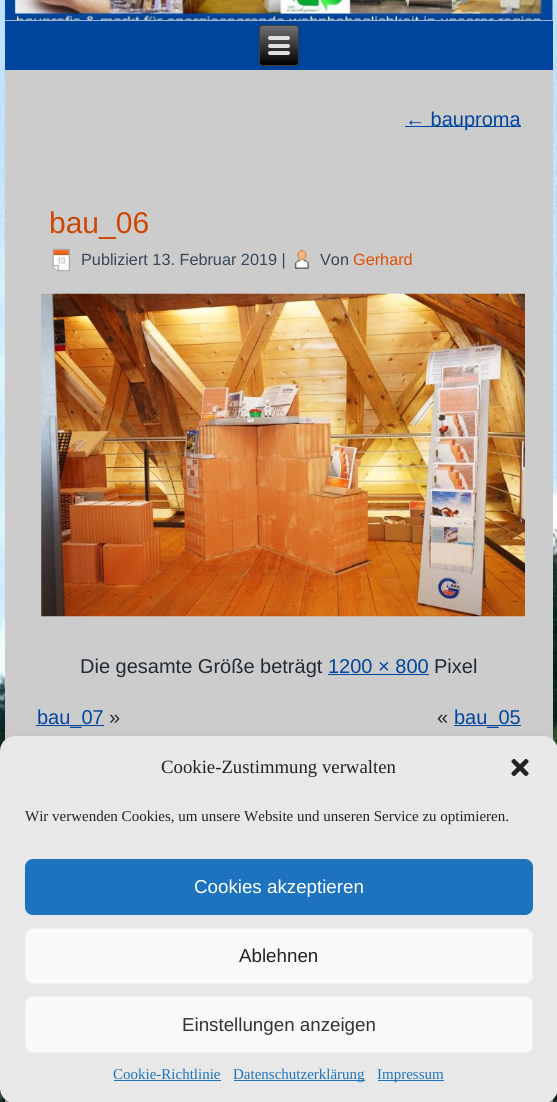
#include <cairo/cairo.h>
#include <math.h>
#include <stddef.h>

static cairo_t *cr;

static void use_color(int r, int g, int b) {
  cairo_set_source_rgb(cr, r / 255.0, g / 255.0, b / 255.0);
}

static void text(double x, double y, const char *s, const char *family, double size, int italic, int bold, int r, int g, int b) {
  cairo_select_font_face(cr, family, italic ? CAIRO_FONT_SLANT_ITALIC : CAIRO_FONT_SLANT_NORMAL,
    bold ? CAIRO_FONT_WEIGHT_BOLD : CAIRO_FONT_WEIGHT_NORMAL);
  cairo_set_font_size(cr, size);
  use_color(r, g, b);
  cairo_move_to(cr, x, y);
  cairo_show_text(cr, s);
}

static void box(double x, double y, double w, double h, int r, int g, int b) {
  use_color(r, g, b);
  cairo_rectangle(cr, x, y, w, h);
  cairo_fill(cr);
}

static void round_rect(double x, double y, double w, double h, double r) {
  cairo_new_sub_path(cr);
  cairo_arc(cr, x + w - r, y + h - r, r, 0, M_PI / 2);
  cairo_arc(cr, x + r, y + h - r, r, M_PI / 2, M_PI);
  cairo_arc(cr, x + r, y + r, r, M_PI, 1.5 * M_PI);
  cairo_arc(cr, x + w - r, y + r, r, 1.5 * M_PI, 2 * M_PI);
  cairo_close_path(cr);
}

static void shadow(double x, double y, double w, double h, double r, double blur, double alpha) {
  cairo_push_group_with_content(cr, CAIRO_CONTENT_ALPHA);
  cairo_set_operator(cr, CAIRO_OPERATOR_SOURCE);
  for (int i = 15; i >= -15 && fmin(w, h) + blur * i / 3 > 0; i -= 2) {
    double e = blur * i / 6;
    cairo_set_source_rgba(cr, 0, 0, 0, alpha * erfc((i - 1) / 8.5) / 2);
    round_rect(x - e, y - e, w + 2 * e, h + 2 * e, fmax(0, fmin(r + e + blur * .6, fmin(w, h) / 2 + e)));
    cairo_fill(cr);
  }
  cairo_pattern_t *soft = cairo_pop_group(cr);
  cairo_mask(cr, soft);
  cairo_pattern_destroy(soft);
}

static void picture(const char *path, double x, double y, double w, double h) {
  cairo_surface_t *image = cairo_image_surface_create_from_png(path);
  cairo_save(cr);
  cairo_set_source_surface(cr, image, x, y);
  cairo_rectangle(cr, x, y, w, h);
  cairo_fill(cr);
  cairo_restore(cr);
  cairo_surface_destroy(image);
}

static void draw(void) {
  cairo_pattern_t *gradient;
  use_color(255, 255, 255);
  cairo_paint(cr);
  picture("img_01.png", 0, 0, 557, 1102);
  picture("img_02.png", 5, 0, 548, 20);
  box(5, 21, 548, 49, 0, 70, 158);
  box(5, 20, 548, 1, 163, 180, 200);
  box(5, 70, 548, 1032, 204, 204, 204);
  use_color(0, 0, 0);
  shadow(259, 25, 40, 41, 4, 2, 0.2);
  cairo_save(cr);
  round_rect(259, 25, 40, 41, 4);
  cairo_clip(cr);
  gradient = cairo_pattern_create_linear(279, 26, 279, 65);
  cairo_pattern_add_color_stop_rgba(gradient, 0, 0.439, 0.439, 0.439, 1);
  cairo_pattern_add_color_stop_rgba(gradient, 1, 0, 0, 0, 1);
  cairo_set_source(cr, gradient);
  cairo_pattern_destroy(gradient);
  cairo_rectangle(cr, 259, 26, 40, 39);
  cairo_fill(cr);
  cairo_restore(cr);
  round_rect(259.5, 25.5, 39, 40, 3.5);
  use_color(64, 64, 64);
  cairo_set_line_width(cr, 1);
  cairo_stroke(cr);
  use_color(224, 224, 224);
  round_rect(268, 36, 22, 4, 2);
  cairo_fill(cr);
  round_rect(268, 44, 22, 4, 2);
  cairo_fill(cr);
  round_rect(268, 51, 22, 4, 2);
  cairo_fill(cr);
  box(405, 126, 116, 1, 0, 70, 158);
  picture("img_03.png", 52, 248, 18, 24);
  picture("img_04.png", 294, 249, 15, 20);
  picture("img_05.png", 41, 293, 484, 324);
  box(328, 674, 101, 1, 0, 70, 158);
  box(36, 725, 68, 1, 0, 70, 158);
  box(454, 725, 67, 1, 0, 70, 158);
  use_color(0, 0, 0);
  shadow(0, 744, 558, 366, 15, 4, 0.23);
  shadow(0, 749, 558, 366, 15, 12.5, 0.19);
  use_color(232, 232, 232);
  round_rect(0, 736, 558, 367, 15);
  cairo_fill(cr);
  picture("img_06.png", 511, 758, 18, 18);
  use_color(30, 115, 190);
  round_rect(25.5, 859.5, 507, 55, 7.5);
  cairo_fill_preserve(cr);
  cairo_stroke(cr);
  use_color(249, 249, 249);
  round_rect(25.5, 928.5, 507, 55, 7.5);
  cairo_fill_preserve(cr);
  use_color(242, 242, 242);
  cairo_stroke(cr);
  use_color(249, 249, 249);
  round_rect(25.5, 996.5, 507, 56, 7.5);
  cairo_fill_preserve(cr);
  use_color(242, 242, 242);
  cairo_stroke(cr);
  box(114, 1080, 107, 1, 30, 115, 190);
  box(234, 1080, 131, 1, 30, 115, 190);
  box(378, 1080, 66, 1, 30, 115, 190);
  text(405, 126, "← bauproma", "Liberation Sans", 20, 0, 0, 0, 70, 158);
  text(49, 233, "bau_06", "Liberation Sans", 30, 0, 0, 205, 71, 4);
  text(81, 265, "Publiziert 13. Februar 2019 |", "Liberation Sans", 16.25, 0, 0, 54, 71, 89);
  text(320, 265, "Von", "Liberation Sans", 16.25, 0, 0, 54, 71, 89);
  text(353, 265, "Gerhard", "Liberation Sans", 16.25, 0, 0, 225, 78, 5);
  text(80, 673, "Die gesamte Größe beträgt", "Liberation Sans", 20, 0, 0, 33, 43, 54);
  text(328, 673, "1200 × 800", "Liberation Sans", 20, 0, 0, 0, 70, 158);
  text(434, 673, "Pixel", "Liberation Sans", 20, 0, 0, 33, 43, 54);
  text(37, 724, "bau_07", "Liberation Sans", 20, 0, 0, 0, 70, 158);
  text(109, 724, "»", "Liberation Sans", 20, 0, 0, 33, 43, 54);
  text(437, 724, "«", "Liberation Sans", 20, 0, 0, 33, 43, 54);
  text(454, 724, "bau_05", "Liberation Sans", 20, 0, 0, 0, 70, 158);
  text(161, 773, "Cookie-Zustimmung verwalten", "Liberation Serif", 18.75, 0, 0, 34, 34, 34);
  text(25, 821, "Wir verwenden Cookies, um unsere Website und unseren Service zu optimieren.", "Liberation Serif", 15, 0, 0, 34, 34, 34);
  text(194, 893, "Cookies akzeptieren", "Liberation Sans", 18.75, 0, 0, 255, 255, 255);
  text(239, 962, "Ablehnen", "Liberation Sans", 18.75, 0, 0, 34, 34, 34);
  text(182, 1031, "Einstellungen anzeigen", "Liberation Sans", 18.75, 0, 0, 51, 51, 51);
  text(113, 1079, "Cookie-Richtlinie", "Liberation Serif", 15, 0, 0, 30, 115, 190);
  text(233, 1079, "Datenschutzerklärung", "Liberation Serif", 15, 0, 0, 30, 115, 190);
  text(377, 1079, "Impressum", "Liberation Serif", 15, 0, 0, 30, 115, 190);
}

int main(void) {
  cairo_surface_t *surface = cairo_image_surface_create(CAIRO_FORMAT_RGB24, 557, 1102);
  cr = cairo_create(surface);
  cairo_font_options_t *options = cairo_font_options_create();
  cairo_font_options_set_hint_metrics(options, CAIRO_HINT_METRICS_OFF);
  cairo_font_options_set_hint_style(options, CAIRO_HINT_STYLE_NONE);
  cairo_set_font_options(cr, options);
  cairo_set_miter_limit(cr, 4);
  draw();
  cairo_surface_write_to_png(surface, "out.png");
  cairo_font_options_destroy(options);
  cairo_destroy(cr);
  cairo_surface_destroy(surface);
  return 0;
}
